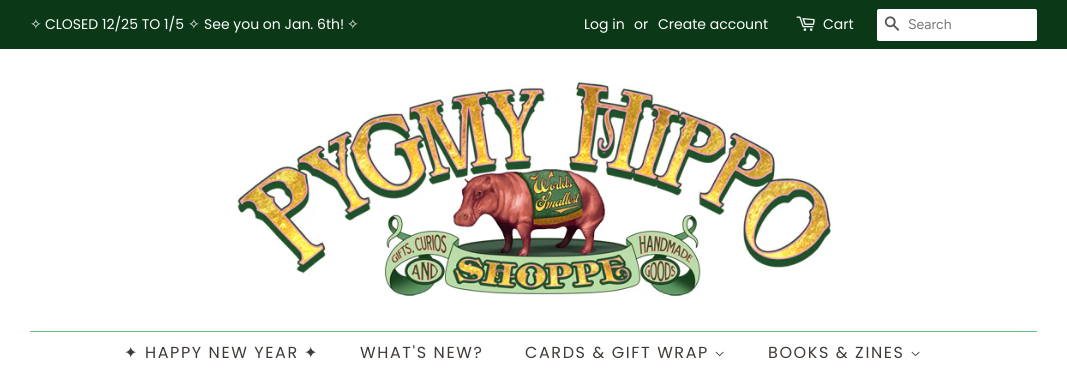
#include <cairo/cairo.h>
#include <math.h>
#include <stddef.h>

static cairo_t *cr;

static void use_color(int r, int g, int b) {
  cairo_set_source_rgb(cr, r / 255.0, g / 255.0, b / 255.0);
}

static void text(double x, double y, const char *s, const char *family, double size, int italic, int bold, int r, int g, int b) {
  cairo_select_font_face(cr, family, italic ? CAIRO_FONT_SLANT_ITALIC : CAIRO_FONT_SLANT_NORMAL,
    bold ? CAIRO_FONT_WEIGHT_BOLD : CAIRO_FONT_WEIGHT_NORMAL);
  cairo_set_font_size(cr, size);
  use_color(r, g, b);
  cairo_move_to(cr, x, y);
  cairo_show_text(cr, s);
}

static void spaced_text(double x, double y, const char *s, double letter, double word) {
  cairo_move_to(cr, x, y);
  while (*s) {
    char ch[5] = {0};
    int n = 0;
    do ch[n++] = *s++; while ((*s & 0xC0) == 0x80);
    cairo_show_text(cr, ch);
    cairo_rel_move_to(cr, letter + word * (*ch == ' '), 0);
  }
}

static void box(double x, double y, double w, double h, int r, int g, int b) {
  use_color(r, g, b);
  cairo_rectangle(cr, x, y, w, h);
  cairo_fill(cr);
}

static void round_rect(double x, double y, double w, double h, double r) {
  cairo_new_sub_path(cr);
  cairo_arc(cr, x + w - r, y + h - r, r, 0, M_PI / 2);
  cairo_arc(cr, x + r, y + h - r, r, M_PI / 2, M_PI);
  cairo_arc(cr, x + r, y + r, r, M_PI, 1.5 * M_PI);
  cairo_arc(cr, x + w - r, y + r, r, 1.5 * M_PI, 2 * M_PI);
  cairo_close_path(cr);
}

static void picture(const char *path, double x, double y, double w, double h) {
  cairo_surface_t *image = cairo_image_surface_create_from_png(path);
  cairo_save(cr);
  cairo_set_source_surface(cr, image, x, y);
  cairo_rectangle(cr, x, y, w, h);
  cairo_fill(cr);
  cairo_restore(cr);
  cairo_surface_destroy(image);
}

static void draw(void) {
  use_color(255, 255, 255);
  cairo_paint(cr);
  box(0, 0, 1067, 49, 11, 57, 24);
  picture("img_01.png", 796, 16, 19, 15);
  use_color(255, 255, 255);
  round_rect(877, 9, 160, 32, 2);
  cairo_fill(cr);
  picture("img_02.png", 884, 16, 16, 15);
  picture("img_03.png", 234, 81, 597, 218);
  box(30, 331, 1007, 1, 105, 188, 125);
  picture("img_04.png", 715, 351, 9, 6);
  picture("img_04.png", 911, 351, 9, 6);
  text(30, 29, "✧", "DejaVu Sans", 14, 0, 0, 255, 255, 255);
  text(45, 29, "CLOSED 12/25 TO 1/5", "Poppins", 14, 0, 0, 255, 255, 255);
  text(188, 29, "✧", "DejaVu Sans", 14, 0, 0, 255, 255, 255);
  text(204, 29, "See you on Jan. 6th!", "Poppins", 14, 0, 0, 255, 255, 255);
  text(347, 29, "✧", "DejaVu Sans", 14, 0, 0, 255, 255, 255);
  text(584, 29, "Log in", "Poppins", 14, 0, 0, 255, 255, 255);
  text(634, 29, "or", "Poppins", 14, 0, 0, 255, 255, 255);
  text(658, 29, "Create account", "Poppins", 14, 0, 0, 255, 255, 255);
  text(823, 29, "Cart", "Poppins", 14, 0, 0, 255, 255, 255);
  text(908, 29, "Search", "Figtree", 14, 0, 0, 117, 117, 117);
  cairo_select_font_face(cr, "DejaVu Sans", CAIRO_FONT_SLANT_NORMAL, CAIRO_FONT_WEIGHT_NORMAL);
  cairo_set_font_size(cr, 16);
  use_color(64, 59, 55);
  spaced_text(124, 358, "✦", 1.6, 0);
  cairo_select_font_face(cr, "Poppins", CAIRO_FONT_SLANT_NORMAL, CAIRO_FONT_WEIGHT_NORMAL);
  spaced_text(145, 358, "HAPPY NEW YEAR", 1.6, 0);
  cairo_select_font_face(cr, "DejaVu Sans", CAIRO_FONT_SLANT_NORMAL, CAIRO_FONT_WEIGHT_NORMAL);
  spaced_text(304, 358, "✦", 1.6, 0);
  cairo_select_font_face(cr, "Poppins", CAIRO_FONT_SLANT_NORMAL, CAIRO_FONT_WEIGHT_NORMAL);
  spaced_text(360, 358, "WHAT'S NEW?", 1.6, 0);
  spaced_text(525, 358, "CARDS & GIFT WRAP", 1.6, 0);
  spaced_text(768, 358, "BOOKS & ZINES", 1.6, 0);
}

int main(void) {
  cairo_surface_t *surface = cairo_image_surface_create(CAIRO_FORMAT_RGB24, 1067, 381);
  cr = cairo_create(surface);
  cairo_font_options_t *options = cairo_font_options_create();
  cairo_font_options_set_hint_metrics(options, CAIRO_HINT_METRICS_OFF);
  cairo_font_options_set_hint_style(options, CAIRO_HINT_STYLE_NONE);
  cairo_set_font_options(cr, options);
  cairo_set_miter_limit(cr, 4);
  draw();
  cairo_surface_write_to_png(surface, "out.png");
  cairo_font_options_destroy(options);
  cairo_destroy(cr);
  cairo_surface_destroy(surface);
  return 0;
}
